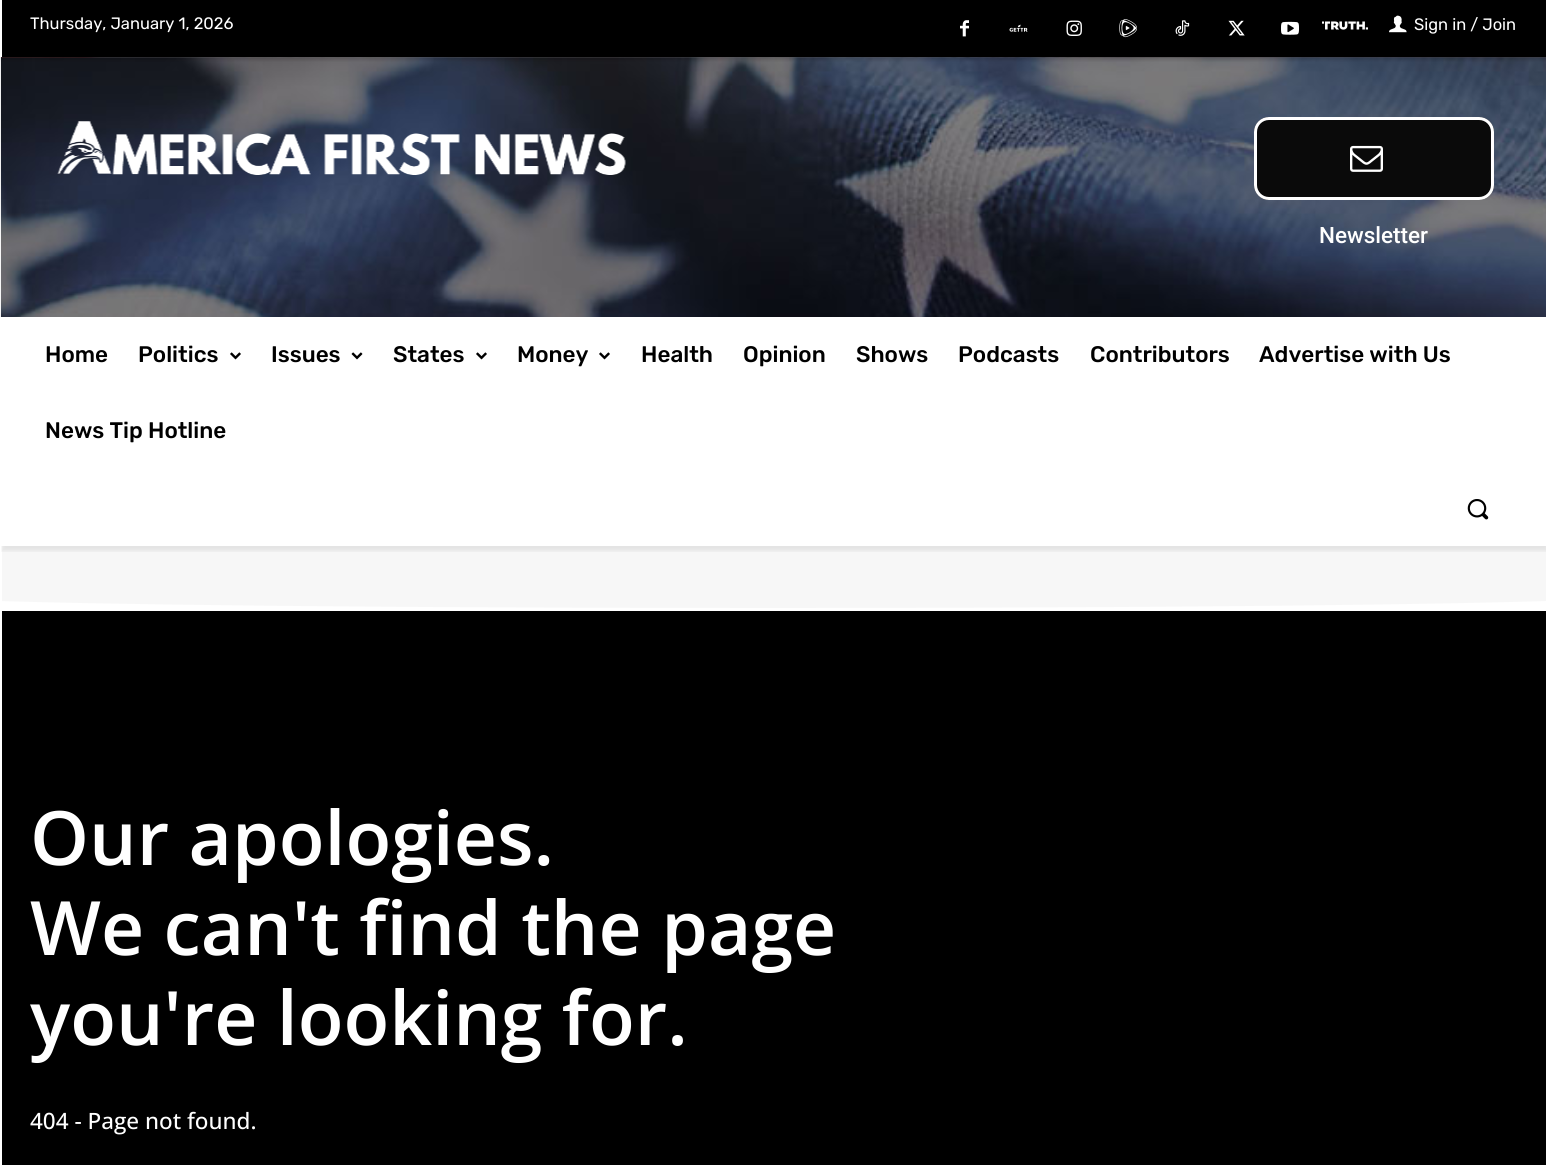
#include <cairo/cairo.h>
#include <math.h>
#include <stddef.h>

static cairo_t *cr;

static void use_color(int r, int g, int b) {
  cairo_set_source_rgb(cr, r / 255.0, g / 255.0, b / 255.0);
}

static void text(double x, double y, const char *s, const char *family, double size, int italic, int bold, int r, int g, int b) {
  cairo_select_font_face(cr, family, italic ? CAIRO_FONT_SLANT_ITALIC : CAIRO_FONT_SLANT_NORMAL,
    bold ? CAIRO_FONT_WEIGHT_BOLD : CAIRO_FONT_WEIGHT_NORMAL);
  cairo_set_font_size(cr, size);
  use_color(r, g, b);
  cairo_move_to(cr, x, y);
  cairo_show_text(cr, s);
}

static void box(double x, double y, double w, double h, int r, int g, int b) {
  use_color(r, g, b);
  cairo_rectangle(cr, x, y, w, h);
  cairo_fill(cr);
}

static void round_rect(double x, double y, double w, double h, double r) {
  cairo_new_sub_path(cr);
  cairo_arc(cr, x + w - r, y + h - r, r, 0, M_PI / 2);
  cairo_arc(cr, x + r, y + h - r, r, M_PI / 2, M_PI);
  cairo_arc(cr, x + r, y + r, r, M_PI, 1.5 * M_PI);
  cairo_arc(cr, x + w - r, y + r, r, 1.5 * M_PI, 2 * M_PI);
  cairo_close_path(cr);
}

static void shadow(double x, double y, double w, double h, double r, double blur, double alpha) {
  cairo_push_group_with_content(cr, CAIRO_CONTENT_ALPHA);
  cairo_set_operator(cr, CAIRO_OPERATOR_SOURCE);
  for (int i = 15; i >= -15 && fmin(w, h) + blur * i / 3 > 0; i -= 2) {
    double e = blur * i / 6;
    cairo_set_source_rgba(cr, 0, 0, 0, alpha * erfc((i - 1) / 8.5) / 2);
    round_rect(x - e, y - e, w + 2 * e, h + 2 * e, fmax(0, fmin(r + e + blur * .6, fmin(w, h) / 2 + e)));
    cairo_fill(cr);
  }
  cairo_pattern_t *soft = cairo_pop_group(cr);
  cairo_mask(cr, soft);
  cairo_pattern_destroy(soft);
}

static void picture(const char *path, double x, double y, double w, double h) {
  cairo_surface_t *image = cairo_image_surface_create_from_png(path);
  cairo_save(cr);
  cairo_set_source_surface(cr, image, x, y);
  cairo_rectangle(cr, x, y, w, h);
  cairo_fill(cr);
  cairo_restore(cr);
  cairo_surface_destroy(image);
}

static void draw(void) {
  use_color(255, 255, 255);
  cairo_paint(cr);
  box(2, 0, 1544, 57, 0, 0, 0);
  picture("img_01.png", 960, 20, 9, 17);
  picture("img_02.png", 1009, 24, 19, 8);
  picture("img_03.png", 1066, 20, 16, 16);
  picture("img_04.png", 1119, 19, 18, 19);
  picture("img_05.png", 1175, 20, 15, 16);
  picture("img_06.png", 1228, 20, 17, 16);
  picture("img_07.png", 1281, 21, 18, 14);
  picture("img_08.png", 1322, 21, 46, 9);
  picture("img_09.png", 1389, 15, 18, 18);
  picture("img_10.png", 0, 57, 1546, 260);
  cairo_save(cr);
  cairo_rectangle(cr, 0, 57, 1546, 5);
  cairo_clip(cr);
  use_color(10, 0, 0);
  shadow(2, 3, 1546, 57, 0, 1.5, 0.15);
  cairo_restore(cr);
  picture("img_11.png", 57, 121, 569, 54);
  use_color(10, 10, 10);
  round_rect(1254, 117, 240, 83, 15);
  cairo_fill(cr);
  picture("img_12.png", 1350, 145, 33, 27);
  round_rect(1255.5, 118.5, 237, 80, 13.5);
  use_color(255, 255, 255);
  cairo_set_line_width(cr, 3);
  cairo_stroke(cr);
  box(2, 546, 1544, 62, 247, 247, 247);
  cairo_save(cr);
  cairo_rectangle(cr, 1, 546, 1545, 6);
  cairo_clip(cr);
  use_color(0, 0, 0);
  shadow(2, 321, 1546, 230, 0, 2, 0.08);
  cairo_restore(cr);
  picture("img_13.png", 230, 352, 11, 8);
  picture("img_14.png", 351, 352, 12, 8);
  picture("img_13.png", 476, 352, 11, 8);
  picture("img_13.png", 599, 352, 11, 8);
  picture("img_15.png", 1467, 499, 22, 21);
  cairo_save(cr);
  cairo_rectangle(cr, 2, 566, 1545, 45);
  cairo_clip(cr);
  use_color(255, 255, 255);
  cairo_new_path(cr);
  cairo_move_to(cr, 0, 622);
  cairo_line_to(cr, 0, 601);
  cairo_curve_to(cr, 0, 601, 188, 608, 773, 608);
  cairo_curve_to(cr, 1359, 608, 1546, 601, 1546, 601);
  cairo_line_to(cr, 1546, 622);
  cairo_close_path(cr);
  cairo_fill(cr);
  cairo_restore(cr);
  box(2, 611, 1544, 554, 0, 0, 0);
  text(30, 29, "Thursday, January 1, 2026", "Rubik", 16.5, 0, 0, 255, 255, 255);
  text(1414, 30, "Sign in / Join", "Rubik", 16.5, 0, 0, 255, 255, 255);
  text(1319, 243, "Newsletter", "Roboto Medium", 22.5, 0, 0, 255, 255, 255);
  text(45, 362, "Home", "Rubik Medium", 22.5, 0, 0, 0, 0, 0);
  text(138, 362, "Politics", "Rubik Medium", 22.5, 0, 0, 0, 0, 0);
  text(271, 362, "Issues", "Rubik Medium", 22.5, 0, 0, 0, 0, 0);
  text(393, 362, "States", "Rubik Medium", 22.5, 0, 0, 0, 0, 0);
  text(517, 362, "Money", "Rubik Medium", 22.5, 0, 0, 0, 0, 0);
  text(641, 362, "Health", "Rubik Medium", 22.5, 0, 0, 0, 0, 0);
  text(743, 362, "Opinion", "Rubik Medium", 22.5, 0, 0, 0, 0, 0);
  text(856, 362, "Shows", "Rubik Medium", 22.5, 0, 0, 0, 0, 0);
  text(958, 362, "Podcasts", "Rubik Medium", 22.5, 0, 0, 0, 0, 0);
  text(1090, 362, "Contributors", "Rubik Medium", 22.5, 0, 0, 0, 0, 0);
  text(1259, 362, "Advertise with Us", "Rubik Medium", 22.5, 0, 0, 0, 0, 0);
  text(45, 438, "News Tip Hotline", "Rubik Medium", 22.5, 0, 0, 0, 0, 0);
  text(30, 865, "Our apologies.", "Open Sans SemiBold", 75, 0, 0, 255, 255, 255);
  text(30, 955, "We can't find the page", "Open Sans SemiBold", 75, 0, 0, 255, 255, 255);
  text(30, 1045, "you're looking for.", "Open Sans SemiBold", 75, 0, 0, 255, 255, 255);
  text(30, 1129, "404 - Page not found.", "Open Sans Medium", 22.5, 0, 0, 255, 255, 255);
}

int main(void) {
  cairo_surface_t *surface = cairo_image_surface_create(CAIRO_FORMAT_RGB24, 1546, 1165);
  cr = cairo_create(surface);
  cairo_font_options_t *options = cairo_font_options_create();
  cairo_font_options_set_hint_metrics(options, CAIRO_HINT_METRICS_OFF);
  cairo_font_options_set_hint_style(options, CAIRO_HINT_STYLE_NONE);
  cairo_set_font_options(cr, options);
  cairo_set_miter_limit(cr, 4);
  draw();
  cairo_surface_write_to_png(surface, "out.png");
  cairo_font_options_destroy(options);
  cairo_destroy(cr);
  cairo_surface_destroy(surface);
  return 0;
}
